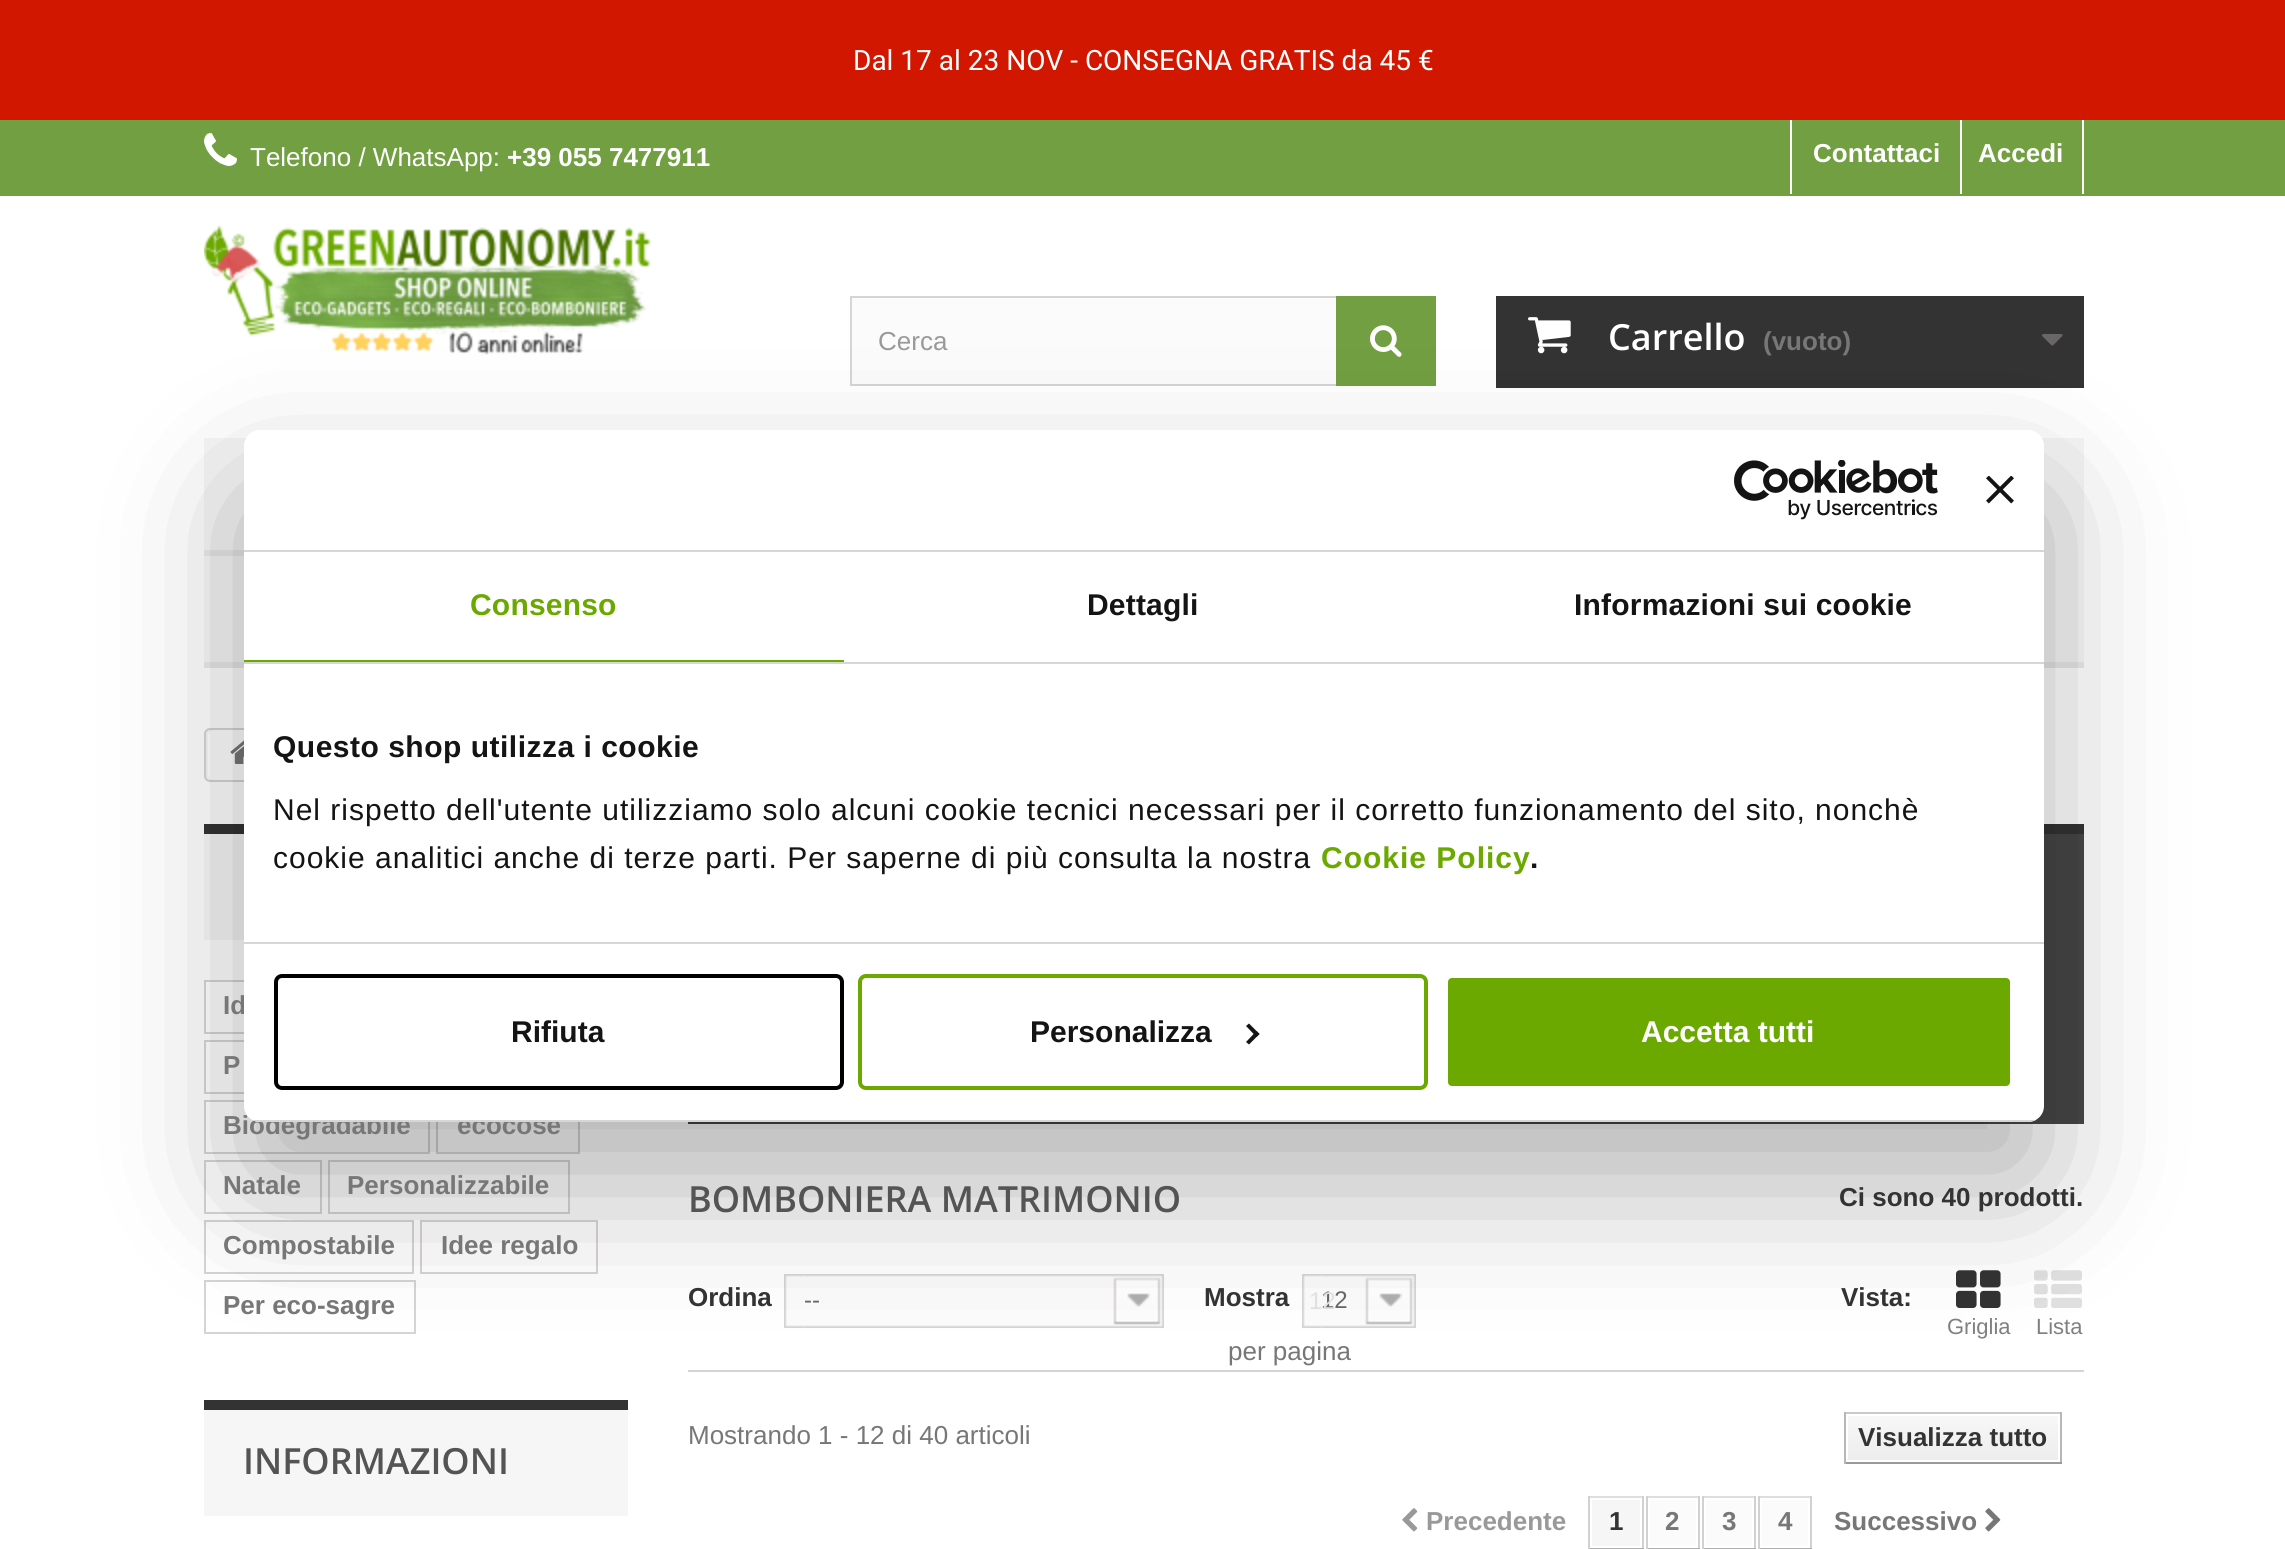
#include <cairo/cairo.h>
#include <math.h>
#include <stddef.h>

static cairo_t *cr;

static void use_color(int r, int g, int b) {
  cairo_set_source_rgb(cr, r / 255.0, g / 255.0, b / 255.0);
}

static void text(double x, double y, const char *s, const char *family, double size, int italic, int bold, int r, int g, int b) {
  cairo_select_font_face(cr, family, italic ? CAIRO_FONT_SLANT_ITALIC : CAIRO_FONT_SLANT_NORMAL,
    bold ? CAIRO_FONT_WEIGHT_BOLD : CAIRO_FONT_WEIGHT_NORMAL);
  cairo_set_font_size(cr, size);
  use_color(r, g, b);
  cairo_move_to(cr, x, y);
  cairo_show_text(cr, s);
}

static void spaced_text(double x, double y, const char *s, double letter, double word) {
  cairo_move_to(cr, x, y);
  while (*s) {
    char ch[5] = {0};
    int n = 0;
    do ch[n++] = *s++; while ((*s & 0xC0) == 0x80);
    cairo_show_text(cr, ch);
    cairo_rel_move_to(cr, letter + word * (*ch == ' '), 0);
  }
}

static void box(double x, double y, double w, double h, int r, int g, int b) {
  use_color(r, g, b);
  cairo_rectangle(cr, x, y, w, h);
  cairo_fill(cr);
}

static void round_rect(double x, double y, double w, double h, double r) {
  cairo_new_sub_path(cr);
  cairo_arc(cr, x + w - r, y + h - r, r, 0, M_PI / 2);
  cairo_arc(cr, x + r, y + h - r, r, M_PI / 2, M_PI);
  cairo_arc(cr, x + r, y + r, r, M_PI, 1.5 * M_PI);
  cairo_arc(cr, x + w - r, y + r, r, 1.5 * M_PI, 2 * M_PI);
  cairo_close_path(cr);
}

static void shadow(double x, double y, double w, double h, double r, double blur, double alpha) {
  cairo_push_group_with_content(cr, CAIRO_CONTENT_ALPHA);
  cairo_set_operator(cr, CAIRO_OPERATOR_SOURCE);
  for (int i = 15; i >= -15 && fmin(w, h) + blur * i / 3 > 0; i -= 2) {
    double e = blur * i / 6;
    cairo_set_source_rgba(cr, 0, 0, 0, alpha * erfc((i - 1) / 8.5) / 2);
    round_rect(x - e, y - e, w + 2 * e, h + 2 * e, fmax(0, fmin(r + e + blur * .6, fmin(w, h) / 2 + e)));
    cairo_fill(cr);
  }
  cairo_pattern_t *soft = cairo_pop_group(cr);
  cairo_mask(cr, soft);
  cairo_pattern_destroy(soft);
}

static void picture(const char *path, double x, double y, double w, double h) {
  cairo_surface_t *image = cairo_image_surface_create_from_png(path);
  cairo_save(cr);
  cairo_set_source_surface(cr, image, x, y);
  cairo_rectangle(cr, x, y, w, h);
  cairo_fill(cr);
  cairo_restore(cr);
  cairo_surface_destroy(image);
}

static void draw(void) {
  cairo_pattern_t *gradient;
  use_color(255, 255, 255);
  cairo_paint(cr);
  box(0, 0, 2285, 120, 210, 23, 0);
  box(0, 120, 2285, 76, 113, 159, 65);
  picture("img_01.png", 204, 133, 33, 33);
  box(1790, 120, 2, 74, 255, 255, 255);
  box(2082, 120, 2, 74, 255, 255, 255);
  box(1960, 120, 2, 74, 255, 255, 255);
  picture("img_02.png", 204, 226, 447, 129);
  box(852, 298, 484, 86, 251, 251, 251);
  cairo_rectangle(cr, 851, 297, 584, 88);
  use_color(214, 212, 212);
  cairo_stroke(cr);
  box(1336, 296, 100, 90, 113, 159, 65);
  picture("img_03.png", 1370, 325, 32, 32);
  box(1496, 296, 588, 92, 51, 51, 51);
  picture("img_04.png", 1528, 317, 43, 37);
  picture("img_05.png", 2042, 334, 21, 12);
  box(204, 438, 1880, 224, 246, 246, 246);
  box(204, 662, 1880, 6, 233, 233, 233);
  box(204, 550, 40, 6, 233, 233, 233);
  use_color(246, 246, 246);
  round_rect(205, 729, 674, 52, 5);
  cairo_fill_preserve(cr);
  use_color(214, 212, 212);
  cairo_stroke(cr);
  use_color(255, 255, 255);
  cairo_new_path(cr);
  cairo_move_to(cr, 214, 730);
  cairo_line_to(cr, 284, 730);
  cairo_line_to(cr, 284, 780);
  cairo_line_to(cr, 214, 780);
  cairo_curve_to(cr, 210.5, 780, 208, 777.5, 208, 774);
  cairo_line_to(cr, 208, 736);
  cairo_curve_to(cr, 208, 732.5, 210.5, 730, 214, 730);
  cairo_close_path(cr);
  cairo_fill(cr);
  picture("img_06.png", 230, 740, 14, 24);
  box(204, 834, 40, 106, 246, 246, 246);
  box(204, 824, 40, 10, 51, 51, 51);
  cairo_rectangle(cr, 205, 981, 174, 52);
  use_color(214, 212, 212);
  cairo_stroke(cr);
  cairo_rectangle(cr, 205, 1041, 214, 52);
  cairo_stroke(cr);
  cairo_rectangle(cr, 205, 1101, 224, 52);
  cairo_stroke(cr);
  cairo_rectangle(cr, 437, 1101, 142, 52);
  cairo_stroke(cr);
  cairo_rectangle(cr, 205, 1161, 116, 52);
  cairo_stroke(cr);
  cairo_rectangle(cr, 329, 1161, 240, 52);
  cairo_stroke(cr);
  cairo_rectangle(cr, 205, 1221, 208, 52);
  cairo_stroke(cr);
  cairo_rectangle(cr, 421, 1221, 176, 52);
  cairo_stroke(cr);
  cairo_rectangle(cr, 205, 1281, 210, 52);
  cairo_stroke(cr);
  box(204, 1410, 424, 106, 246, 246, 246);
  box(204, 1400, 424, 10, 51, 51, 51);
  box(2044, 824, 40, 10, 51, 51, 51);
  box(688, 834, 1396, 290, 70, 70, 70);
  box(688, 1370, 1396, 2, 214, 212, 212);
  picture("img_07.png", 784, 1274, 20, 54);
  picture("img_08.png", 804, 1274, 360, 54);
  picture("img_07.png", 1302, 1274, 20, 54);
  picture("img_09.png", 1322, 1274, 94, 54);
  picture("img_10.png", 1956, 1270, 45, 38);
  picture("img_11.png", 2034, 1270, 48, 38);
  box(1844, 1412, 218, 2, 202, 202, 202);
  box(2060, 1412, 2, 52, 183, 183, 183);
  box(1844, 1462, 218, 2, 154, 154, 154);
  box(1844, 1412, 2, 52, 183, 183, 183);
  gradient = cairo_pattern_create_linear(1953, 1416, 1953, 1460);
  cairo_pattern_add_color_stop_rgba(gradient, 0, 0.969, 0.969, 0.969, 1);
  cairo_pattern_add_color_stop_rgba(gradient, 1, 0.929, 0.929, 0.929, 1);
  cairo_set_source(cr, gradient);
  cairo_pattern_destroy(gradient);
  cairo_rectangle(cr, 1848, 1416, 210, 44);
  cairo_fill(cr);
  picture("img_12.png", 1402, 1508, 16, 24);
  box(1588, 1496, 56, 2, 223, 222, 222);
  box(1642, 1496, 2, 53, 210, 208, 208);
  box(1588, 1548, 56, 1, 176, 175, 175);
  box(1588, 1496, 2, 53, 210, 208, 208);
  box(1592, 1500, 48, 46, 246, 246, 246);
  box(1646, 1496, 54, 2, 223, 222, 222);
  box(1698, 1496, 2, 53, 210, 208, 208);
  box(1646, 1548, 54, 1, 176, 175, 175);
  box(1646, 1496, 2, 53, 210, 208, 208);
  box(1650, 1500, 46, 46, 251, 251, 251);
  box(1702, 1496, 54, 2, 223, 222, 222);
  box(1754, 1496, 2, 53, 210, 208, 208);
  box(1702, 1548, 54, 1, 176, 175, 175);
  box(1702, 1496, 2, 53, 210, 208, 208);
  box(1706, 1500, 46, 46, 251, 251, 251);
  box(1758, 1496, 54, 2, 223, 222, 222);
  box(1810, 1496, 2, 53, 210, 208, 208);
  box(1758, 1548, 54, 1, 176, 175, 175);
  box(1758, 1496, 2, 53, 210, 208, 208);
  box(1762, 1500, 46, 46, 251, 251, 251);
  picture("img_13.png", 1985, 1508, 16, 24);
  use_color(0, 0, 0);
  shadow(244, 494, 1800, 692, 16, 68, 0.3);
  text(853, 70, "Dal 17 al 23 NOV - CONSEGNA GRATIS da 45 €", "Roboto", 28, 0, 0, 255, 255, 255);
  text(250, 166, "Telefono / WhatsApp:", "Liberation Sans", 26, 0, 0, 255, 255, 255);
  text(507, 166, "+39 055 7477911", "Liberation Sans", 26, 0, 1, 255, 255, 255);
  text(1813, 162, "Contattaci", "Liberation Sans", 26, 0, 1, 255, 255, 255);
  text(1978, 162, "Accedi", "Liberation Sans", 26, 0, 1, 255, 255, 255);
  text(878, 350, "Cerca", "Liberation Sans", 26, 0, 0, 153, 153, 153);
  text(1608, 350, "Carrello", "Open Sans SemiBold", 36, 0, 0, 255, 255, 255);
  text(1763, 350, "(vuoto)", "Liberation Sans", 26, 0, 1, 119, 119, 119);
  text(223, 1014, "Id", "Liberation Sans", 26, 0, 1, 119, 119, 119);
  text(223, 1074, "P", "Liberation Sans", 26, 0, 1, 119, 119, 119);
  text(223, 1134, "Biodegradabile", "Liberation Sans", 26, 0, 1, 119, 119, 119);
  text(457, 1134, "ecocose", "Liberation Sans", 26, 0, 1, 119, 119, 119);
  text(223, 1194, "Natale", "Liberation Sans", 26, 0, 1, 119, 119, 119);
  text(347, 1194, "Personalizzabile", "Liberation Sans", 26, 0, 1, 119, 119, 119);
  text(223, 1254, "Compostabile", "Liberation Sans", 26, 0, 1, 119, 119, 119);
  text(441, 1254, "Idee regalo", "Liberation Sans", 26, 0, 1, 119, 119, 119);
  text(223, 1314, "Per eco-sagre", "Liberation Sans", 26, 0, 1, 119, 119, 119);
  text(243, 1474, "INFORMAZIONI", "Open Sans SemiBold", 36, 0, 0, 85, 84, 84);
  text(688, 1212, "BOMBONIERA MATRIMONIO", "Open Sans SemiBold", 36, 0, 0, 85, 84, 84);
  text(1839, 1206, "Ci sono 40 prodotti.", "Liberation Sans", 26, 0, 1, 51, 51, 51);
  text(688, 1306, "Ordina", "Liberation Sans", 26, 0, 1, 51, 51, 51);
  text(804, 1308, "--", "Liberation Sans", 24, 0, 0, 102, 102, 102);
  text(1204, 1306, "Mostra", "Liberation Sans", 26, 0, 1, 51, 51, 51);
  text(1321, 1308, "12", "Liberation Sans", 24, 0, 0, 102, 102, 102);
  text(1309, 1309, "12", "Liberation Sans", 24, 0, 0, 224, 224, 224);
  text(1228, 1360, "per pagina", "Liberation Sans", 26, 0, 0, 119, 119, 119);
  text(1841, 1306, "Vista:", "Liberation Sans", 26, 0, 1, 51, 51, 51);
  text(1947, 1334, "Griglia", "Liberation Sans", 22, 0, 0, 128, 128, 128);
  text(2036, 1334, "Lista", "Liberation Sans", 22, 0, 0, 128, 128, 128);
  text(688, 1444, "Mostrando 1 - 12 di 40 articoli", "Liberation Sans", 26, 0, 0, 119, 119, 119);
  text(1858, 1446, "Visualizza tutto", "Liberation Sans", 26, 0, 1, 51, 51, 51);
  text(1426, 1530, "Precedente", "Liberation Sans", 26, 0, 1, 153, 153, 153);
  text(1609, 1530, "1", "Liberation Sans", 26, 0, 1, 51, 51, 51);
  text(1665, 1530, "2", "Liberation Sans", 26, 0, 1, 119, 119, 119);
  text(1722, 1530, "3", "Liberation Sans", 26, 0, 1, 119, 119, 119);
  text(1778, 1530, "4", "Liberation Sans", 26, 0, 1, 119, 119, 119);
  text(1834, 1530, "Successivo", "Liberation Sans", 26, 0, 1, 119, 119, 119);
  use_color(255, 255, 255);
  round_rect(244, 430, 1800, 692, 16);
  cairo_fill(cr);
  box(244, 550, 1800, 2, 214, 214, 214);
  picture("img_14.png", 1734, 460, 204, 60);
  picture("img_15.png", 1986, 476, 28, 28);
  box(244, 662, 1800, 2, 214, 214, 214);
  box(244, 660, 600, 2, 107, 169, 0);
  cairo_set_font_size(cr, 30);
  spaced_text(470, 615, "Consenso", 0.2, 0);
  use_color(20, 20, 20);
  spaced_text(1087, 615, "Dettagli", 0.2, 0);
  spaced_text(1574, 615, "Informazioni sui cookie", 0.2, 0);
  box(244, 942, 1800, 2, 214, 214, 214);
  use_color(20, 20, 20);
  spaced_text(273, 757, "Questo shop utilizza i cookie", 0.5, 0);
  cairo_select_font_face(cr, "Liberation Sans", CAIRO_FONT_SLANT_NORMAL, CAIRO_FONT_WEIGHT_NORMAL);
  spaced_text(273, 820, "Nel rispetto dell'utente utilizziamo solo alcuni cookie tecnici necessari per il corretto funzionamento del sito, nonchè", 1, 0);
  spaced_text(273, 868, "cookie analitici anche di terze parti. Per saperne di più consulta la nostra", 1, 0);
  cairo_select_font_face(cr, "Liberation Sans", CAIRO_FONT_SLANT_NORMAL, CAIRO_FONT_WEIGHT_BOLD);
  use_color(107, 169, 0);
  spaced_text(1321, 868, "Cookie Policy", 1, 0);
  use_color(20, 20, 20);
  spaced_text(1530, 868, ".", 1, 0);
  cairo_save(cr);
  round_rect(244, 430, 1800, 692, 16);
  cairo_clip(cr);
  box(244, 1120, 1800, 2, 214, 214, 214);
  cairo_restore(cr);
  round_rect(276, 976, 566, 112, 6);
  use_color(0, 0, 0);
  cairo_set_line_width(cr, 4);
  cairo_stroke(cr);
  text(511, 1042, "Rifiuta", "Liberation Sans", 30, 0, 1, 20, 20, 20);
  round_rect(860, 976, 566, 112, 6);
  use_color(107, 169, 0);
  cairo_stroke(cr);
  text(1030, 1042, "Personalizza", "Liberation Sans", 30, 0, 1, 20, 20, 20);
  cairo_new_path(cr);
  cairo_move_to(cr, 1249, 1023.5);
  cairo_line_to(cr, 1259.5, 1034);
  cairo_line_to(cr, 1256.5, 1037);
  cairo_line_to(cr, 1246, 1026);
  cairo_close_path(cr);
  cairo_fill(cr);
  cairo_new_path(cr);
  cairo_move_to(cr, 1256.5, 1031);
  cairo_line_to(cr, 1259.5, 1034);
  cairo_line_to(cr, 1249, 1044.5);
  cairo_line_to(cr, 1246, 1042);
  cairo_close_path(cr);
  cairo_fill(cr);
  use_color(107, 169, 0);
  round_rect(1446, 976, 566, 112, 6);
  cairo_fill_preserve(cr);
  use_color(255, 255, 255);
  cairo_stroke(cr);
  text(1641, 1042, "Accetta tutti", "Liberation Sans", 30, 0, 1, 255, 255, 255);
}

int main(void) {
  cairo_surface_t *surface = cairo_image_surface_create(CAIRO_FORMAT_RGB24, 2285, 1549);
  cr = cairo_create(surface);
  cairo_font_options_t *options = cairo_font_options_create();
  cairo_font_options_set_hint_metrics(options, CAIRO_HINT_METRICS_OFF);
  cairo_font_options_set_hint_style(options, CAIRO_HINT_STYLE_NONE);
  cairo_set_font_options(cr, options);
  cairo_set_miter_limit(cr, 4);
  draw();
  cairo_surface_write_to_png(surface, "out.png");
  cairo_font_options_destroy(options);
  cairo_destroy(cr);
  cairo_surface_destroy(surface);
  return 0;
}
